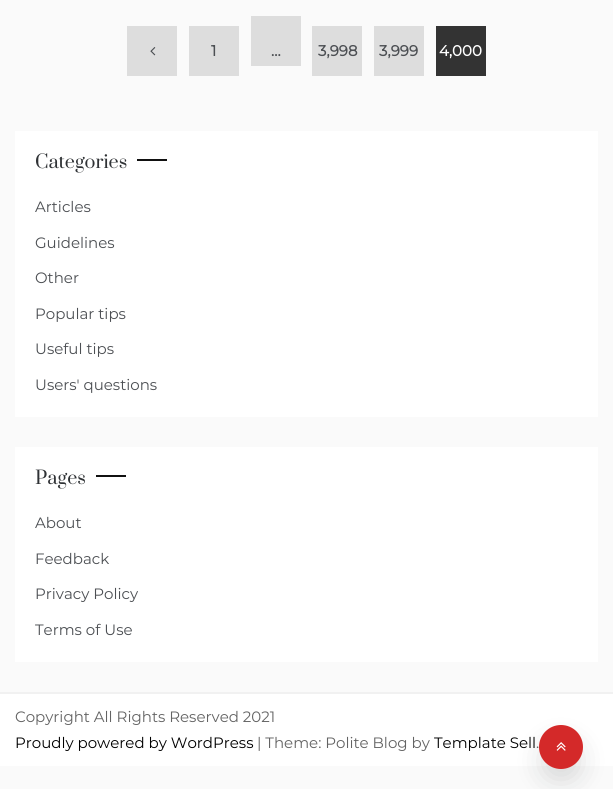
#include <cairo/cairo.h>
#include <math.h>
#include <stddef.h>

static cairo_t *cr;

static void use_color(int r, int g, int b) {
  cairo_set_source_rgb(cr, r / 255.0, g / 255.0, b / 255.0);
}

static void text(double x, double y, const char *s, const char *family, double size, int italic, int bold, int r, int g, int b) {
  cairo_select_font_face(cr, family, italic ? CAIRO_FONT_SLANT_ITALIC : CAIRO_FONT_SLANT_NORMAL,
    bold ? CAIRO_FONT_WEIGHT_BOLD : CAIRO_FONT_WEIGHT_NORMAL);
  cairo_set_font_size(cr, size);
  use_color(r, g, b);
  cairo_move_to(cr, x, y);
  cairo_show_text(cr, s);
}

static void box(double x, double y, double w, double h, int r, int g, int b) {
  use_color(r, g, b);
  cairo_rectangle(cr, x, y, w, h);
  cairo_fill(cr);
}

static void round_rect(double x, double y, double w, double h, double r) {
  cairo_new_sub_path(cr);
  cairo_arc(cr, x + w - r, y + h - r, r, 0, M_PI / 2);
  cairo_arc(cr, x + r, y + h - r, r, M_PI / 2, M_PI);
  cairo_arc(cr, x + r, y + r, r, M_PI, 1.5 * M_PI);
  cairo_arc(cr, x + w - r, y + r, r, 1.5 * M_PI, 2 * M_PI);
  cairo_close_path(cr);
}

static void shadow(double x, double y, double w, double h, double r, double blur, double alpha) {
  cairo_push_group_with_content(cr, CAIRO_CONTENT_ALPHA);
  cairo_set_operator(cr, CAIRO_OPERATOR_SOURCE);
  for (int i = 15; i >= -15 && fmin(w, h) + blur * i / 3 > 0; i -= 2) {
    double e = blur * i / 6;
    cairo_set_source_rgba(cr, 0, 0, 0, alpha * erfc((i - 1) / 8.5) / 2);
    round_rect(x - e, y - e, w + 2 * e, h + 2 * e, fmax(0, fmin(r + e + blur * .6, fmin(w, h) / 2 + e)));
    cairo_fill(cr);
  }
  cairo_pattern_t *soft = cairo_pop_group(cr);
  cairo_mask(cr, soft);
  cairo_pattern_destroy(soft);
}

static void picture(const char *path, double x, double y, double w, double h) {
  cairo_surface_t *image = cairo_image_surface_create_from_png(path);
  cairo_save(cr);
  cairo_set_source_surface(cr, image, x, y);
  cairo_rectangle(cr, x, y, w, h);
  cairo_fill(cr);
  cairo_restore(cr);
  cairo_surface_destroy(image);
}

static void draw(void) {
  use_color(250, 250, 250);
  cairo_paint(cr);
  box(127, 26, 50, 50, 221, 221, 221);
  picture("img_01.png", 150, 47, 6, 9);
  box(189, 26, 50, 50, 221, 221, 221);
  box(251, 16, 50, 50, 221, 221, 221);
  box(312, 26, 50, 50, 221, 221, 221);
  box(374, 26, 50, 50, 221, 221, 221);
  box(436, 26, 50, 50, 51, 51, 51);
  box(15, 131, 583, 286, 255, 255, 255);
  box(137, 159, 30, 2, 17, 17, 17);
  box(15, 447, 583, 215, 255, 255, 255);
  box(96, 475, 30, 2, 17, 17, 17);
  box(0, 694, 613, 72, 255, 255, 255);
  box(0, 692, 613, 2, 241, 241, 241);
  use_color(14, 17, 20);
  shadow(543, 743, 36, 36, 18, 14, 0.15);
  use_color(212, 41, 41);
  cairo_arc(cr, 561, 747, 22, 0, 2 * M_PI);
  cairo_fill(cr);
  picture("img_02.png", 556, 742, 10, 9);
  text(211, 56, "1", "Montserrat", 15, 0, 1, 76, 79, 83);
  text(271, 56, "…", "Montserrat", 15, 0, 1, 76, 79, 83);
  text(318, 56, "3,998", "Montserrat", 15, 0, 1, 76, 79, 83);
  text(379, 56, "3,999", "Montserrat", 15, 0, 1, 76, 79, 83);
  text(439, 56, "4,000", "Montserrat", 15, 0, 1, 255, 255, 255);
  text(35, 168, "Categories", "Prata", 18, 0, 0, 47, 50, 53);
  text(35, 212, "Articles", "Montserrat Thin", 15, 0, 0, 76, 79, 83);
  text(35, 248, "Guidelines", "Montserrat Thin", 15, 0, 0, 76, 79, 83);
  text(35, 283, "Other", "Montserrat Thin", 15, 0, 0, 76, 79, 83);
  text(35, 319, "Popular tips", "Montserrat Thin", 15, 0, 0, 76, 79, 83);
  text(35, 354, "Useful tips", "Montserrat Thin", 15, 0, 0, 76, 79, 83);
  text(35, 390, "Users' questions", "Montserrat Thin", 15, 0, 0, 76, 79, 83);
  text(35, 484, "Pages", "Prata", 18, 0, 0, 47, 50, 53);
  text(35, 528, "About", "Montserrat Thin", 15, 0, 0, 76, 79, 83);
  text(35, 564, "Feedback", "Montserrat Thin", 15, 0, 0, 76, 79, 83);
  text(35, 599, "Privacy Policy", "Montserrat Thin", 15, 0, 0, 76, 79, 83);
  text(35, 635, "Terms of Use", "Montserrat Thin", 15, 0, 0, 76, 79, 83);
  text(15, 722, "Copyright All Rights Reserved 2021", "Montserrat Thin", 15, 0, 0, 99, 99, 99);
  text(15, 748, "Proudly powered by WordPress", "Montserrat Thin", 15, 0, 0, 0, 0, 0);
  text(257, 748, "| Theme: Polite Blog by", "Montserrat Thin", 15, 0, 0, 99, 99, 99);
  text(434, 748, "Template Sell", "Montserrat Thin", 15, 0, 0, 0, 0, 0);
  text(536, 748, ".", "Montserrat Thin", 15, 0, 0, 99, 99, 99);
}

int main(void) {
  cairo_surface_t *surface = cairo_image_surface_create(CAIRO_FORMAT_RGB24, 613, 789);
  cr = cairo_create(surface);
  cairo_font_options_t *options = cairo_font_options_create();
  cairo_font_options_set_hint_metrics(options, CAIRO_HINT_METRICS_OFF);
  cairo_font_options_set_hint_style(options, CAIRO_HINT_STYLE_NONE);
  cairo_set_font_options(cr, options);
  cairo_set_miter_limit(cr, 4);
  draw();
  cairo_surface_write_to_png(surface, "out.png");
  cairo_font_options_destroy(options);
  cairo_destroy(cr);
  cairo_surface_destroy(surface);
  return 0;
}
